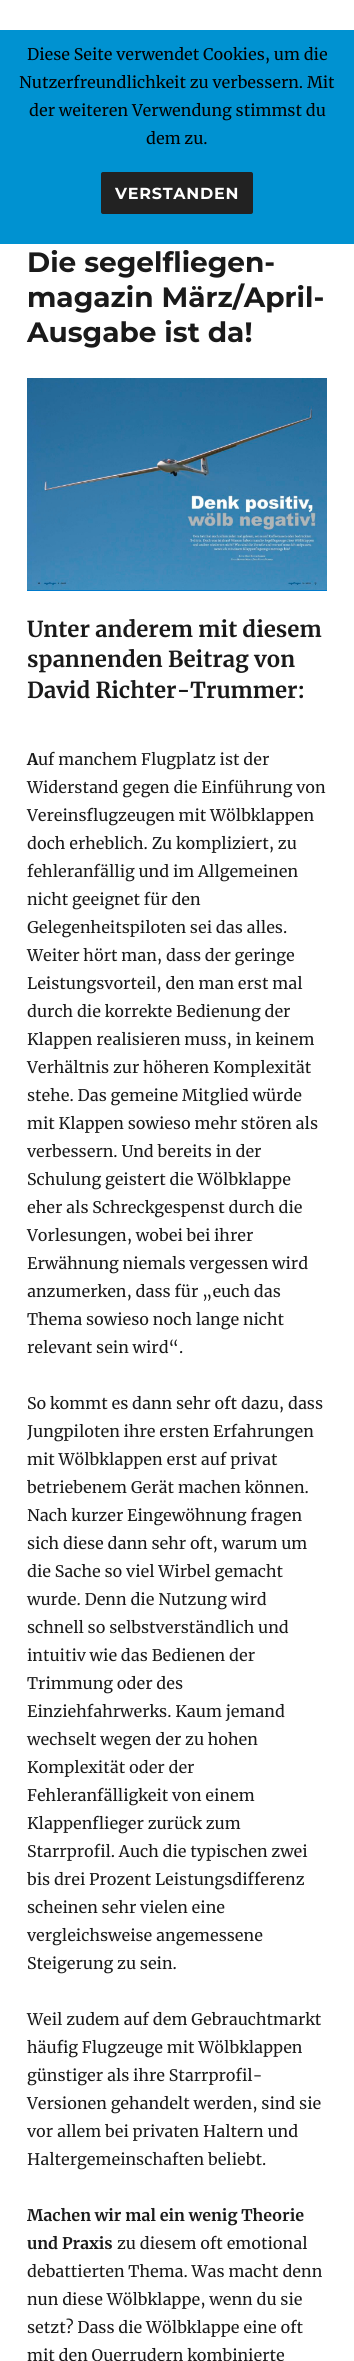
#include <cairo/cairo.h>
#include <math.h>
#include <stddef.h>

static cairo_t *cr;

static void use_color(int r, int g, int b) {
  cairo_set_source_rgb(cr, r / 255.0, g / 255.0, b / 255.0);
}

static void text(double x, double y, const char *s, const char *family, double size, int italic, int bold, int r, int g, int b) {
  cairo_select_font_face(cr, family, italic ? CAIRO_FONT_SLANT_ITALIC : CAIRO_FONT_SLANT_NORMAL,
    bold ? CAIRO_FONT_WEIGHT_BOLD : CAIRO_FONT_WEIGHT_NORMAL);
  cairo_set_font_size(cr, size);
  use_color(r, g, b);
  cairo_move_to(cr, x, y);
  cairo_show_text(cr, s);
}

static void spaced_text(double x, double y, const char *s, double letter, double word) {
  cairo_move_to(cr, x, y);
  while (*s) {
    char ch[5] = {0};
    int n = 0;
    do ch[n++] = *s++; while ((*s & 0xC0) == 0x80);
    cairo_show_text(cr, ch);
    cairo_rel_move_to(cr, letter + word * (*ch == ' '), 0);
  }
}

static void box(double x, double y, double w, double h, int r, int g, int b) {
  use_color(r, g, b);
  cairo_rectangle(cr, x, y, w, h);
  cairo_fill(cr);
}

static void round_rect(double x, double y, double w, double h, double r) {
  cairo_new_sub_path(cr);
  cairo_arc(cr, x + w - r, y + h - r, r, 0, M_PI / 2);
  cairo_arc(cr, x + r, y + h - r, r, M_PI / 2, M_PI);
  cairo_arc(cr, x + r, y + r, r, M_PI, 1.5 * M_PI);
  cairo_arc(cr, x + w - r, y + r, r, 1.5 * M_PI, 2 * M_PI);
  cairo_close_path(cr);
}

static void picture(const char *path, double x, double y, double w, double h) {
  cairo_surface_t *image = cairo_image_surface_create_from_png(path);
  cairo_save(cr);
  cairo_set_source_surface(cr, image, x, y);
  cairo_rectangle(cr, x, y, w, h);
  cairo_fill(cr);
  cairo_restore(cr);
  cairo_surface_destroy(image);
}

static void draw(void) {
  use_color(255, 255, 255);
  cairo_paint(cr);
  box(0, 30, 354, 214, 0, 146, 209);
  use_color(34, 34, 34);
  round_rect(101, 172, 152, 42, 2);
  cairo_fill(cr);
  box(27, 590, 300, 1, 0, 122, 204);
  picture("img_01.png", 27, 378, 300, 212);
  text(27, 60, "Diese Seite verwendet Cookies, um die", "Merriweather", 16, 0, 0, 0, 0, 0);
  text(19, 88, "Nutzerfreundlichkeit zu verbessern. Mit", "Merriweather", 16, 0, 0, 0, 0, 0);
  text(29, 116, "der weiteren Verwendung stimmst du", "Merriweather", 16, 0, 0, 0, 0, 0);
  text(146, 144, "dem zu.", "Merriweather", 16, 0, 0, 0, 0, 0);
  cairo_select_font_face(cr, "Montserrat Thin", CAIRO_FONT_SLANT_NORMAL, CAIRO_FONT_WEIGHT_NORMAL);
  use_color(255, 255, 255);
  spaced_text(115, 199, "VERSTANDEN", 0.75, 0);
  text(27, 272, "Die segelfliegen-", "Montserrat Thin", 28, 0, 0, 26, 26, 26);
  text(27, 307, "magazin März/April-", "Montserrat Thin", 28, 0, 0, 26, 26, 26);
  text(27, 342, "Ausgabe ist da!", "Montserrat Thin", 28, 0, 0, 26, 26, 26);
  text(27, 637, "Unter anderem mit diesem", "Merriweather", 22, 0, 1, 26, 26, 26);
  text(27, 667, "spannenden Beitrag von", "Merriweather", 22, 0, 1, 26, 26, 26);
  text(27, 698, "David Richter-Trummer:", "Merriweather", 22, 0, 1, 26, 26, 26);
  text(27, 765, "A", "Merriweather", 16, 0, 1, 26, 26, 26);
  text(38, 765, "uf manchem Flugplatz ist der", "Merriweather", 16, 0, 0, 26, 26, 26);
  text(27, 793, "Widerstand gegen die Einführung von", "Merriweather", 16, 0, 0, 26, 26, 26);
  text(27, 821, "Vereinsflugzeugen mit Wölbklappen", "Merriweather", 16, 0, 0, 26, 26, 26);
  text(27, 849, "doch erheblich. Zu kompliziert, zu", "Merriweather", 16, 0, 0, 26, 26, 26);
  text(27, 877, "fehleranfällig und im Allgemeinen", "Merriweather", 16, 0, 0, 26, 26, 26);
  text(27, 905, "nicht geeignet für den", "Merriweather", 16, 0, 0, 26, 26, 26);
  text(27, 933, "Gelegenheitspiloten sei das alles.", "Merriweather", 16, 0, 0, 26, 26, 26);
  text(27, 961, "Weiter hört man, dass der geringe", "Merriweather", 16, 0, 0, 26, 26, 26);
  text(27, 989, "Leistungsvorteil, den man erst mal", "Merriweather", 16, 0, 0, 26, 26, 26);
  text(27, 1017, "durch die korrekte Bedienung der", "Merriweather", 16, 0, 0, 26, 26, 26);
  text(27, 1045, "Klappen realisieren muss, in keinem", "Merriweather", 16, 0, 0, 26, 26, 26);
  text(27, 1073, "Verhältnis zur höheren Komplexität", "Merriweather", 16, 0, 0, 26, 26, 26);
  text(27, 1101, "stehe. Das gemeine Mitglied würde", "Merriweather", 16, 0, 0, 26, 26, 26);
  text(27, 1129, "mit Klappen sowieso mehr stören als", "Merriweather", 16, 0, 0, 26, 26, 26);
  text(27, 1157, "verbessern. Und bereits in der", "Merriweather", 16, 0, 0, 26, 26, 26);
  text(27, 1185, "Schulung geistert die Wölbklappe", "Merriweather", 16, 0, 0, 26, 26, 26);
  text(27, 1213, "eher als Schreckgespenst durch die", "Merriweather", 16, 0, 0, 26, 26, 26);
  text(27, 1241, "Vorlesungen, wobei bei ihrer", "Merriweather", 16, 0, 0, 26, 26, 26);
  text(27, 1269, "Erwähnung niemals vergessen wird", "Merriweather", 16, 0, 0, 26, 26, 26);
  text(27, 1297, "anzumerken, dass für „euch das", "Merriweather", 16, 0, 0, 26, 26, 26);
  text(27, 1325, "Thema sowieso noch lange nicht", "Merriweather", 16, 0, 0, 26, 26, 26);
  text(27, 1353, "relevant sein wird“.", "Merriweather", 16, 0, 0, 26, 26, 26);
  text(27, 1409, "So kommt es dann sehr oft dazu, dass", "Merriweather", 16, 0, 0, 26, 26, 26);
  text(27, 1437, "Jungpiloten ihre ersten Erfahrungen", "Merriweather", 16, 0, 0, 26, 26, 26);
  text(27, 1465, "mit Wölbklappen erst auf privat", "Merriweather", 16, 0, 0, 26, 26, 26);
  text(27, 1493, "betriebenem Gerät machen können.", "Merriweather", 16, 0, 0, 26, 26, 26);
  text(27, 1521, "Nach kurzer Eingewöhnung fragen", "Merriweather", 16, 0, 0, 26, 26, 26);
  text(27, 1549, "sich diese dann sehr oft, warum um", "Merriweather", 16, 0, 0, 26, 26, 26);
  text(27, 1577, "die Sache so viel Wirbel gemacht", "Merriweather", 16, 0, 0, 26, 26, 26);
  text(27, 1605, "wurde. Denn die Nutzung wird", "Merriweather", 16, 0, 0, 26, 26, 26);
  text(27, 1633, "schnell so selbstverständlich und", "Merriweather", 16, 0, 0, 26, 26, 26);
  text(27, 1661, "intuitiv wie das Bedienen der", "Merriweather", 16, 0, 0, 26, 26, 26);
  text(27, 1689, "Trimmung oder des", "Merriweather", 16, 0, 0, 26, 26, 26);
  text(27, 1717, "Einziehfahrwerks. Kaum jemand", "Merriweather", 16, 0, 0, 26, 26, 26);
  text(27, 1745, "wechselt wegen der zu hohen", "Merriweather", 16, 0, 0, 26, 26, 26);
  text(27, 1773, "Komplexität oder der", "Merriweather", 16, 0, 0, 26, 26, 26);
  text(27, 1801, "Fehleranfälligkeit von einem", "Merriweather", 16, 0, 0, 26, 26, 26);
  text(27, 1829, "Klappenflieger zurück zum", "Merriweather", 16, 0, 0, 26, 26, 26);
  text(27, 1857, "Starrprofil. Auch die typischen zwei", "Merriweather", 16, 0, 0, 26, 26, 26);
  text(27, 1885, "bis drei Prozent Leistungsdifferenz", "Merriweather", 16, 0, 0, 26, 26, 26);
  text(27, 1913, "scheinen sehr vielen eine", "Merriweather", 16, 0, 0, 26, 26, 26);
  text(27, 1941, "vergleichsweise angemessene", "Merriweather", 16, 0, 0, 26, 26, 26);
  text(27, 1969, "Steigerung zu sein.", "Merriweather", 16, 0, 0, 26, 26, 26);
  text(27, 2025, "Weil zudem auf dem Gebrauchtmarkt", "Merriweather", 16, 0, 0, 26, 26, 26);
  text(27, 2053, "häufig Flugzeuge mit Wölbklappen", "Merriweather", 16, 0, 0, 26, 26, 26);
  text(27, 2081, "günstiger als ihre Starrprofil-", "Merriweather", 16, 0, 0, 26, 26, 26);
  text(27, 2109, "Versionen gehandelt werden, sind sie", "Merriweather", 16, 0, 0, 26, 26, 26);
  text(27, 2137, "vor allem bei privaten Haltern und", "Merriweather", 16, 0, 0, 26, 26, 26);
  text(27, 2165, "Haltergemeinschaften beliebt.", "Merriweather", 16, 0, 0, 26, 26, 26);
  text(27, 2221, "Machen wir mal ein wenig Theorie", "Merriweather", 16, 0, 1, 26, 26, 26);
  text(27, 2249, "und Praxis", "Merriweather", 16, 0, 1, 26, 26, 26);
  text(117, 2249, "zu diesem oft emotional", "Merriweather", 16, 0, 0, 26, 26, 26);
  text(27, 2277, "debattierten Thema. Was macht denn", "Merriweather", 16, 0, 0, 26, 26, 26);
  text(27, 2305, "nun diese Wölbklappe, wenn du sie", "Merriweather", 16, 0, 0, 26, 26, 26);
  text(27, 2333, "setzt? Dass die Wölbklappe eine oft", "Merriweather", 16, 0, 0, 26, 26, 26);
  text(27, 2361, "mit den Querrudern kombinierte", "Merriweather", 16, 0, 0, 26, 26, 26);
}

int main(void) {
  cairo_surface_t *surface = cairo_image_surface_create(CAIRO_FORMAT_RGB24, 354, 2361);
  cr = cairo_create(surface);
  cairo_font_options_t *options = cairo_font_options_create();
  cairo_font_options_set_hint_metrics(options, CAIRO_HINT_METRICS_OFF);
  cairo_font_options_set_hint_style(options, CAIRO_HINT_STYLE_NONE);
  cairo_set_font_options(cr, options);
  cairo_set_miter_limit(cr, 4);
  draw();
  cairo_surface_write_to_png(surface, "out.png");
  cairo_font_options_destroy(options);
  cairo_destroy(cr);
  cairo_surface_destroy(surface);
  return 0;
}
